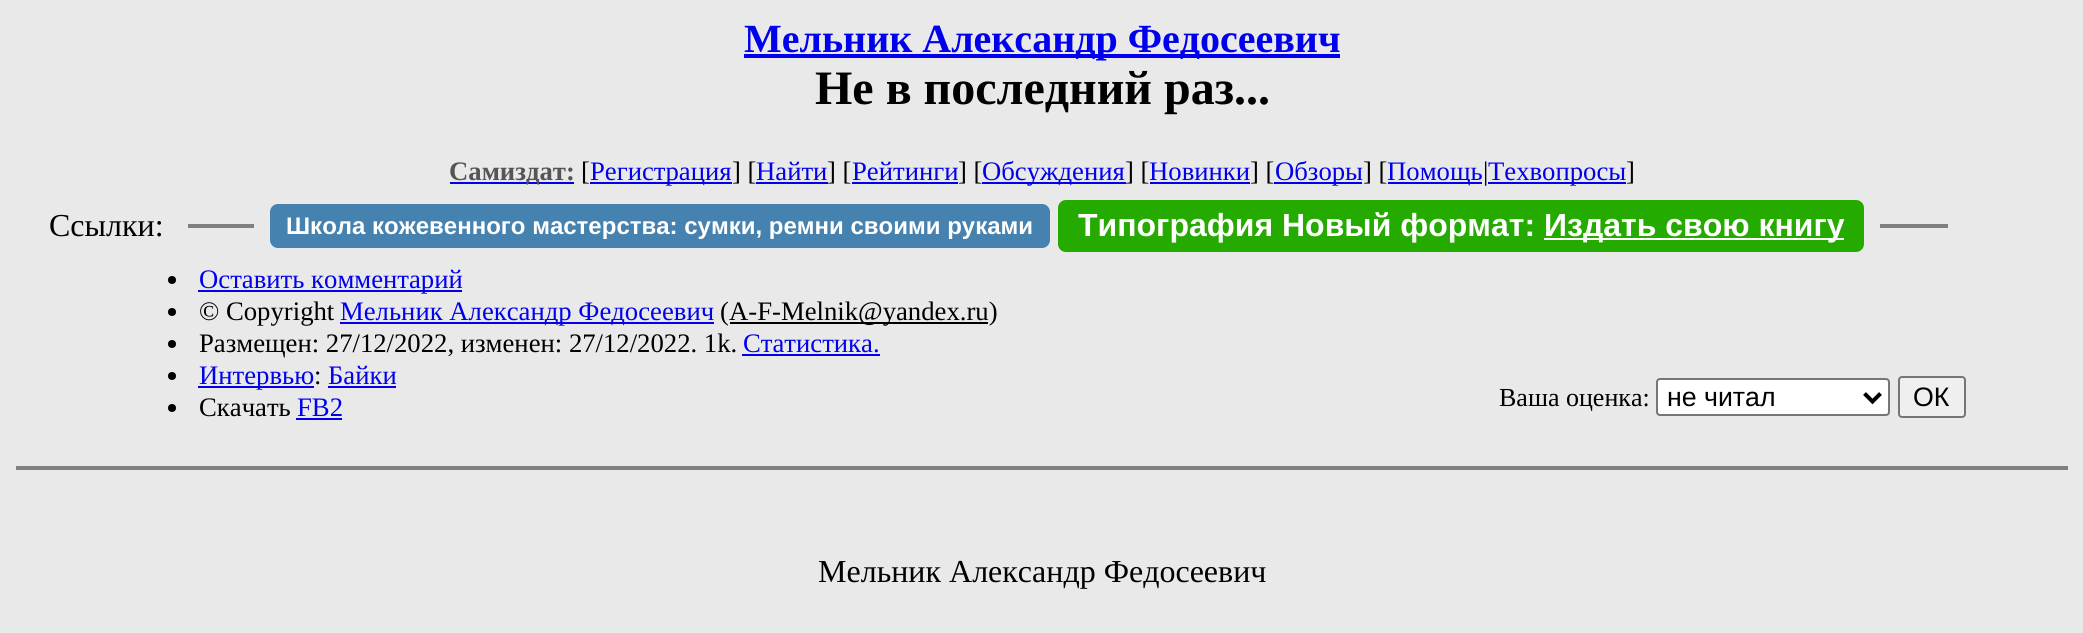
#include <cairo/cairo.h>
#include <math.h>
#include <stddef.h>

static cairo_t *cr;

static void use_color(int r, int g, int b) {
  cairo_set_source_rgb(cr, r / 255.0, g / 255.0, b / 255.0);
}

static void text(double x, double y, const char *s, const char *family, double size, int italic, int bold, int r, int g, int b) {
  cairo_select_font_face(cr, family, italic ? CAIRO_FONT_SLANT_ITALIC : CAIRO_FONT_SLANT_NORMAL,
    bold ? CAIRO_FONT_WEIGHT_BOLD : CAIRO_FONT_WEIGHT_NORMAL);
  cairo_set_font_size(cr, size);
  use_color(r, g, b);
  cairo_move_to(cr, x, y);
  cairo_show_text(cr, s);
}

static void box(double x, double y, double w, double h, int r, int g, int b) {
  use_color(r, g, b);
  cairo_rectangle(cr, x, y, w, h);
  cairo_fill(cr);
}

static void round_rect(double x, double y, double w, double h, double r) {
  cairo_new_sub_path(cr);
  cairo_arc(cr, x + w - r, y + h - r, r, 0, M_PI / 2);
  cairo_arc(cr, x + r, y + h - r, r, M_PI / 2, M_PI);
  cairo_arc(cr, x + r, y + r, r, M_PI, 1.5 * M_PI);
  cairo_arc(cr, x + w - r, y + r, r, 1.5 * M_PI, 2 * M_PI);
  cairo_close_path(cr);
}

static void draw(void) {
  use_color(233, 233, 233);
  cairo_paint(cr);
  box(744, 54, 596, 4, 0, 0, 238);
  box(450, 182, 124, 2, 0, 0, 238);
  box(590, 182, 142, 2, 0, 0, 238);
  box(756, 182, 72, 2, 0, 0, 238);
  box(852, 182, 106, 2, 0, 0, 238);
  box(982, 182, 144, 2, 0, 0, 238);
  box(1150, 182, 100, 2, 0, 0, 238);
  box(1274, 182, 88, 2, 0, 0, 238);
  box(1388, 182, 94, 2, 0, 0, 238);
  box(1488, 182, 138, 2, 0, 0, 238);
  box(188, 224, 66, 4, 128, 128, 128);
  use_color(69, 130, 175);
  round_rect(270, 204, 780, 44, 8);
  cairo_fill(cr);
  use_color(37, 170, 0);
  round_rect(1058, 200, 806, 52, 8);
  cairo_fill(cr);
  box(1544, 238, 300, 2, 255, 255, 255);
  box(1880, 224, 68, 4, 128, 128, 128);
  use_color(0, 0, 0);
  cairo_arc(cr, 172, 280, 4, 0, 2 * M_PI);
  cairo_fill(cr);
  box(198, 290, 264, 2, 0, 0, 238);
  use_color(0, 0, 0);
  cairo_arc(cr, 172, 312, 4, 0, 2 * M_PI);
  cairo_fill(cr);
  box(340, 322, 374, 2, 0, 0, 238);
  box(730, 322, 258, 2, 0, 0, 0);
  cairo_arc(cr, 172, 344, 4, 0, 2 * M_PI);
  cairo_fill(cr);
  box(742, 354, 138, 2, 0, 0, 238);
  use_color(0, 0, 0);
  cairo_arc(cr, 172, 376, 4, 0, 2 * M_PI);
  cairo_fill(cr);
  box(198, 386, 116, 2, 0, 0, 238);
  box(328, 386, 68, 2, 0, 0, 238);
  use_color(0, 0, 0);
  cairo_arc(cr, 172, 408, 4, 0, 2 * M_PI);
  cairo_fill(cr);
  box(296, 418, 46, 2, 0, 0, 238);
  use_color(255, 255, 255);
  round_rect(1657, 379, 232, 36, 3);
  cairo_fill_preserve(cr);
  use_color(118, 118, 118);
  cairo_stroke(cr);
  cairo_new_path(cr);
  cairo_move_to(cr, 1864.5, 393.5);
  cairo_line_to(cr, 1872.5, 401.5);
  cairo_line_to(cr, 1880.5, 393.5);
  use_color(0, 0, 0);
  cairo_set_line_width(cr, 4);
  cairo_stroke(cr);
  use_color(239, 239, 239);
  round_rect(1899, 377, 66, 40, 3);
  cairo_fill_preserve(cr);
  use_color(118, 118, 118);
  cairo_set_line_width(cr, 2);
  cairo_stroke(cr);
  box(16, 466, 2052, 4, 128, 128, 128);
  text(744, 52, "Мельник Александр Федосеевич", "Liberation Serif", 40, 0, 1, 0, 0, 238);
  text(815, 104, "Не в последний раз...", "Liberation Serif", 48, 0, 1, 0, 0, 0);
  text(449, 180, "Самиздат:", "Liberation Serif", 26.7, 0, 1, 85, 85, 85);
  text(581, 180, "[", "Liberation Serif", 26.7, 0, 0, 0, 0, 0);
  text(590, 180, "Регистрация", "Liberation Serif", 26.7, 0, 0, 0, 0, 238);
  text(732, 180, "] [", "Liberation Serif", 26.7, 0, 0, 0, 0, 0);
  text(756, 180, "Найти", "Liberation Serif", 26.7, 0, 0, 0, 0, 238);
  text(827, 180, "] [", "Liberation Serif", 26.7, 0, 0, 0, 0, 0);
  text(852, 180, "Рейтинги", "Liberation Serif", 26.7, 0, 0, 0, 0, 238);
  text(958, 180, "] [", "Liberation Serif", 26.7, 0, 0, 0, 0, 0);
  text(982, 180, "Обсуждения", "Liberation Serif", 26.7, 0, 0, 0, 0, 238);
  text(1125, 180, "] [", "Liberation Serif", 26.7, 0, 0, 0, 0, 0);
  text(1149, 180, "Новинки", "Liberation Serif", 26.7, 0, 0, 0, 0, 238);
  text(1250, 180, "] [", "Liberation Serif", 26.7, 0, 0, 0, 0, 0);
  text(1275, 180, "Обзоры", "Liberation Serif", 26.7, 0, 0, 0, 0, 238);
  text(1363, 180, "] [", "Liberation Serif", 26.7, 0, 0, 0, 0, 0);
  text(1387, 180, "Помощь", "Liberation Serif", 26.7, 0, 0, 0, 0, 238);
  text(1483, 180, "|", "Liberation Serif", 26.7, 0, 0, 0, 0, 0);
  text(1488, 180, "Техвопросы", "Liberation Serif", 26.7, 0, 0, 0, 0, 238);
  text(1626, 180, "]", "Liberation Serif", 26.7, 0, 0, 0, 0, 0);
  text(49, 236, "Ссылки:", "Liberation Serif", 32, 0, 0, 0, 0, 0);
  text(286, 234, "Школа кожевенного мастерства: сумки, ремни своими руками", "Liberation Sans", 24, 0, 1, 255, 255, 255);
  text(1078, 236, "Типография Новый формат:", "Liberation Sans", 32, 0, 1, 255, 255, 255);
  text(1544, 236, "Издать свою книгу", "Liberation Sans", 32, 0, 1, 255, 255, 255);
  text(199, 288, "Оставить комментарий", "Liberation Serif", 26.7, 0, 0, 0, 0, 238);
  text(199, 320, "© Copyright", "Liberation Serif", 26.7, 0, 0, 0, 0, 0);
  text(340, 320, "Мельник Александр Федосеевич", "Liberation Serif", 26.7, 0, 0, 0, 0, 238);
  text(720, 320, "(", "Liberation Serif", 26.7, 0, 0, 0, 0, 0);
  text(729, 320, "A-F-Melnik@yandex.ru)", "Liberation Serif", 26.7, 0, 0, 0, 0, 0);
  text(199, 352, "Размещен: 27/12/2022, изменен: 27/12/2022. 1k.", "Liberation Serif", 26.7, 0, 0, 0, 0, 0);
  text(743, 352, "Статистика.", "Liberation Serif", 26.7, 0, 0, 0, 0, 238);
  text(199, 384, "Интервью", "Liberation Serif", 26.7, 0, 0, 0, 0, 238);
  text(314, 384, ":", "Liberation Serif", 26.7, 0, 0, 0, 0, 0);
  text(328, 384, "Байки", "Liberation Serif", 26.7, 0, 0, 0, 0, 238);
  text(199, 416, "Скачать", "Liberation Serif", 26.7, 0, 0, 0, 0, 0);
  text(297, 416, "FB2", "Liberation Serif", 26.7, 0, 0, 0, 0, 238);
  text(1499, 406, "Ваша оценка:", "Liberation Serif", 26, 0, 0, 0, 0, 0);
  text(1667, 406, "не читал", "Liberation Sans", 26.7, 0, 0, 0, 0, 0);
  text(1913, 406, "ОК", "Liberation Sans", 26.7, 0, 0, 0, 0, 0);
  text(818, 582, "Мельник Александр Федосеевич", "Liberation Serif", 32, 0, 0, 0, 0, 0);
}

int main(void) {
  cairo_surface_t *surface = cairo_image_surface_create(CAIRO_FORMAT_RGB24, 2083, 633);
  cr = cairo_create(surface);
  cairo_font_options_t *options = cairo_font_options_create();
  cairo_font_options_set_hint_metrics(options, CAIRO_HINT_METRICS_OFF);
  cairo_font_options_set_hint_style(options, CAIRO_HINT_STYLE_NONE);
  cairo_set_font_options(cr, options);
  cairo_set_miter_limit(cr, 4);
  draw();
  cairo_surface_write_to_png(surface, "out.png");
  cairo_font_options_destroy(options);
  cairo_destroy(cr);
  cairo_surface_destroy(surface);
  return 0;
}
